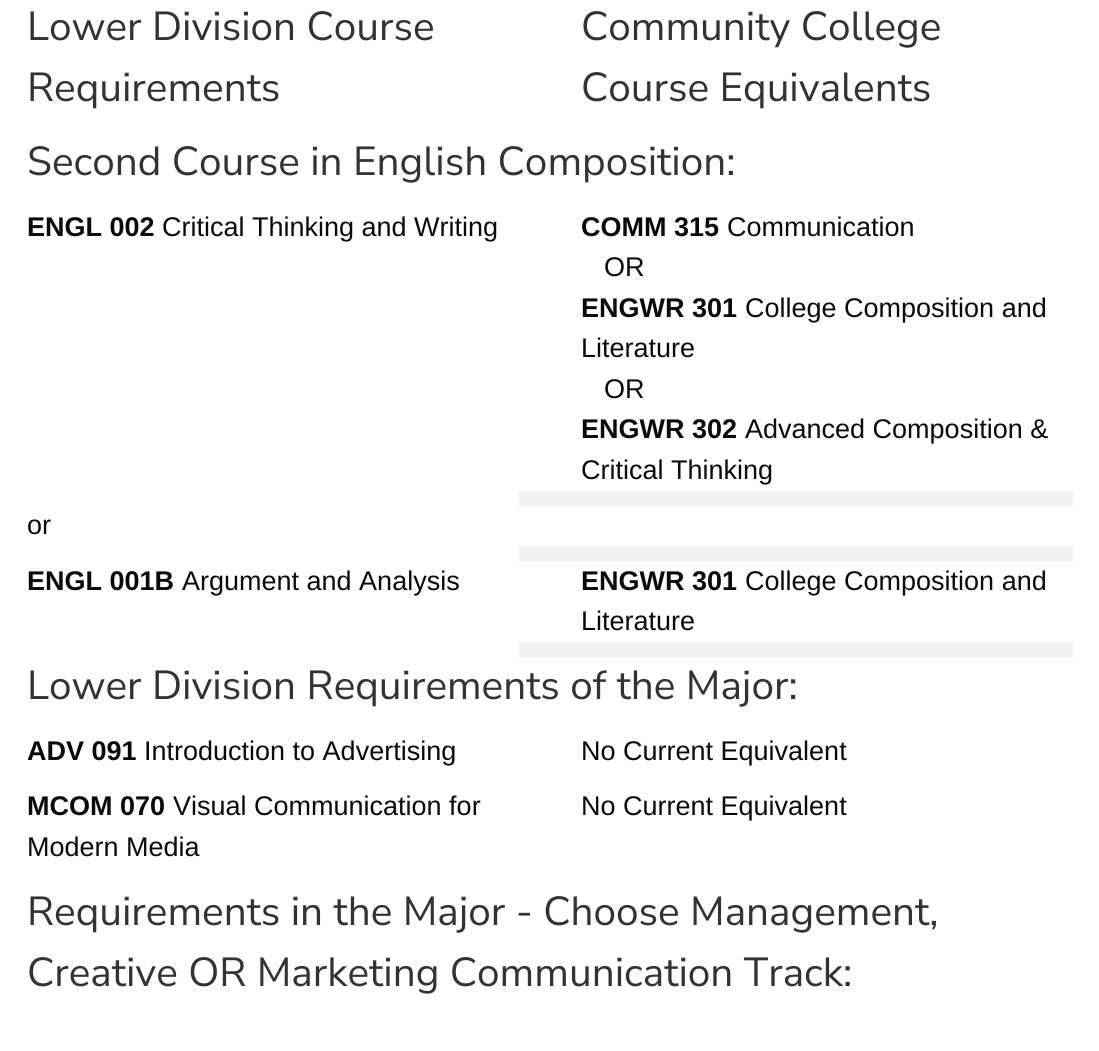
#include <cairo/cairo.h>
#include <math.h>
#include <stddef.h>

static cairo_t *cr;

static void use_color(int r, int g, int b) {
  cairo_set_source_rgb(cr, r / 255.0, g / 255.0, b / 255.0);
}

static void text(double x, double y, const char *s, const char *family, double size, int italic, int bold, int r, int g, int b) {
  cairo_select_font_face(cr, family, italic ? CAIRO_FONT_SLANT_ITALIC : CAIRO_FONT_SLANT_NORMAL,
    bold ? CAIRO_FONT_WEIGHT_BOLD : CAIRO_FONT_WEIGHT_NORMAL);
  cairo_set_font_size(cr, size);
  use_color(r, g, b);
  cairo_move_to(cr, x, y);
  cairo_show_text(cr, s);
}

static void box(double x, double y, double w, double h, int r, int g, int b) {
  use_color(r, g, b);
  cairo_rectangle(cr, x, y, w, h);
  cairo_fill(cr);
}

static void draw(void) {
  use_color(255, 255, 255);
  cairo_paint(cr);
  box(519, 491, 554, 15, 241, 241, 241);
  box(519, 546, 554, 15, 241, 241, 241);
  box(519, 642, 554, 15, 241, 241, 241);
  text(27, 40, "Lower Division Course", "Nunito Sans", 40.5, 0, 0, 51, 51, 51);
  text(27, 101, "Requirements", "Nunito Sans", 40.5, 0, 0, 51, 51, 51);
  text(581, 40, "Community College", "Nunito Sans", 40.5, 0, 0, 51, 51, 51);
  text(581, 101, "Course Equivalents", "Nunito Sans", 40.5, 0, 0, 51, 51, 51);
  text(27, 175, "Second Course in English Composition:", "Nunito Sans", 40.5, 0, 0, 51, 51, 51);
  text(27, 236, "ENGL 002", "Liberation Sans", 27, 0, 1, 10, 10, 10);
  text(162, 236, "Critical Thinking and Writing", "Liberation Sans", 27, 0, 0, 10, 10, 10);
  text(581, 236, "COMM 315", "Liberation Sans", 27, 0, 1, 10, 10, 10);
  text(727, 236, "Communication", "Liberation Sans", 27, 0, 0, 10, 10, 10);
  text(604, 276, "OR", "Liberation Sans", 27, 0, 0, 10, 10, 10);
  text(581, 317, "ENGWR 301", "Liberation Sans", 27, 0, 1, 10, 10, 10);
  text(745, 317, "College Composition and", "Liberation Sans", 27, 0, 0, 10, 10, 10);
  text(581, 357, "Literature", "Liberation Sans", 27, 0, 0, 10, 10, 10);
  text(604, 398, "OR", "Liberation Sans", 27, 0, 0, 10, 10, 10);
  text(581, 438, "ENGWR 302", "Liberation Sans", 27, 0, 1, 10, 10, 10);
  text(745, 438, "Advanced Composition &", "Liberation Sans", 27, 0, 0, 10, 10, 10);
  text(581, 479, "Critical Thinking", "Liberation Sans", 27, 0, 0, 10, 10, 10);
  text(27, 534, "or", "Liberation Sans", 27, 0, 0, 10, 10, 10);
  text(27, 590, "ENGL 001B", "Liberation Sans", 27, 0, 1, 10, 10, 10);
  text(182, 590, "Argument and Analysis", "Liberation Sans", 27, 0, 0, 10, 10, 10);
  text(581, 590, "ENGWR 301", "Liberation Sans", 27, 0, 1, 10, 10, 10);
  text(745, 590, "College Composition and", "Liberation Sans", 27, 0, 0, 10, 10, 10);
  text(581, 630, "Literature", "Liberation Sans", 27, 0, 0, 10, 10, 10);
  text(27, 699, "Lower Division Requirements of the Major:", "Nunito Sans", 40.5, 0, 0, 51, 51, 51);
  text(27, 760, "ADV 091", "Liberation Sans", 27, 0, 1, 10, 10, 10);
  text(144, 760, "Introduction to Advertising", "Liberation Sans", 27, 0, 0, 10, 10, 10);
  text(581, 760, "No Current Equivalent", "Liberation Sans", 27, 0, 0, 10, 10, 10);
  text(27, 815, "MCOM 070", "Liberation Sans", 27, 0, 1, 10, 10, 10);
  text(173, 815, "Visual Communication for", "Liberation Sans", 27, 0, 0, 10, 10, 10);
  text(27, 856, "Modern Media", "Liberation Sans", 27, 0, 0, 10, 10, 10);
  text(581, 815, "No Current Equivalent", "Liberation Sans", 27, 0, 0, 10, 10, 10);
  text(27, 925, "Requirements in the Major - Choose Management,", "Nunito Sans", 40.5, 0, 0, 51, 51, 51);
  text(27, 986, "Creative OR Marketing Communication Track:", "Nunito Sans", 40.5, 0, 0, 51, 51, 51);
}

int main(void) {
  cairo_surface_t *surface = cairo_image_surface_create(CAIRO_FORMAT_RGB24, 1099, 1051);
  cr = cairo_create(surface);
  cairo_font_options_t *options = cairo_font_options_create();
  cairo_font_options_set_hint_metrics(options, CAIRO_HINT_METRICS_OFF);
  cairo_font_options_set_hint_style(options, CAIRO_HINT_STYLE_NONE);
  cairo_set_font_options(cr, options);
  cairo_set_miter_limit(cr, 4);
  draw();
  cairo_surface_write_to_png(surface, "out.png");
  cairo_font_options_destroy(options);
  cairo_destroy(cr);
  cairo_surface_destroy(surface);
  return 0;
}
